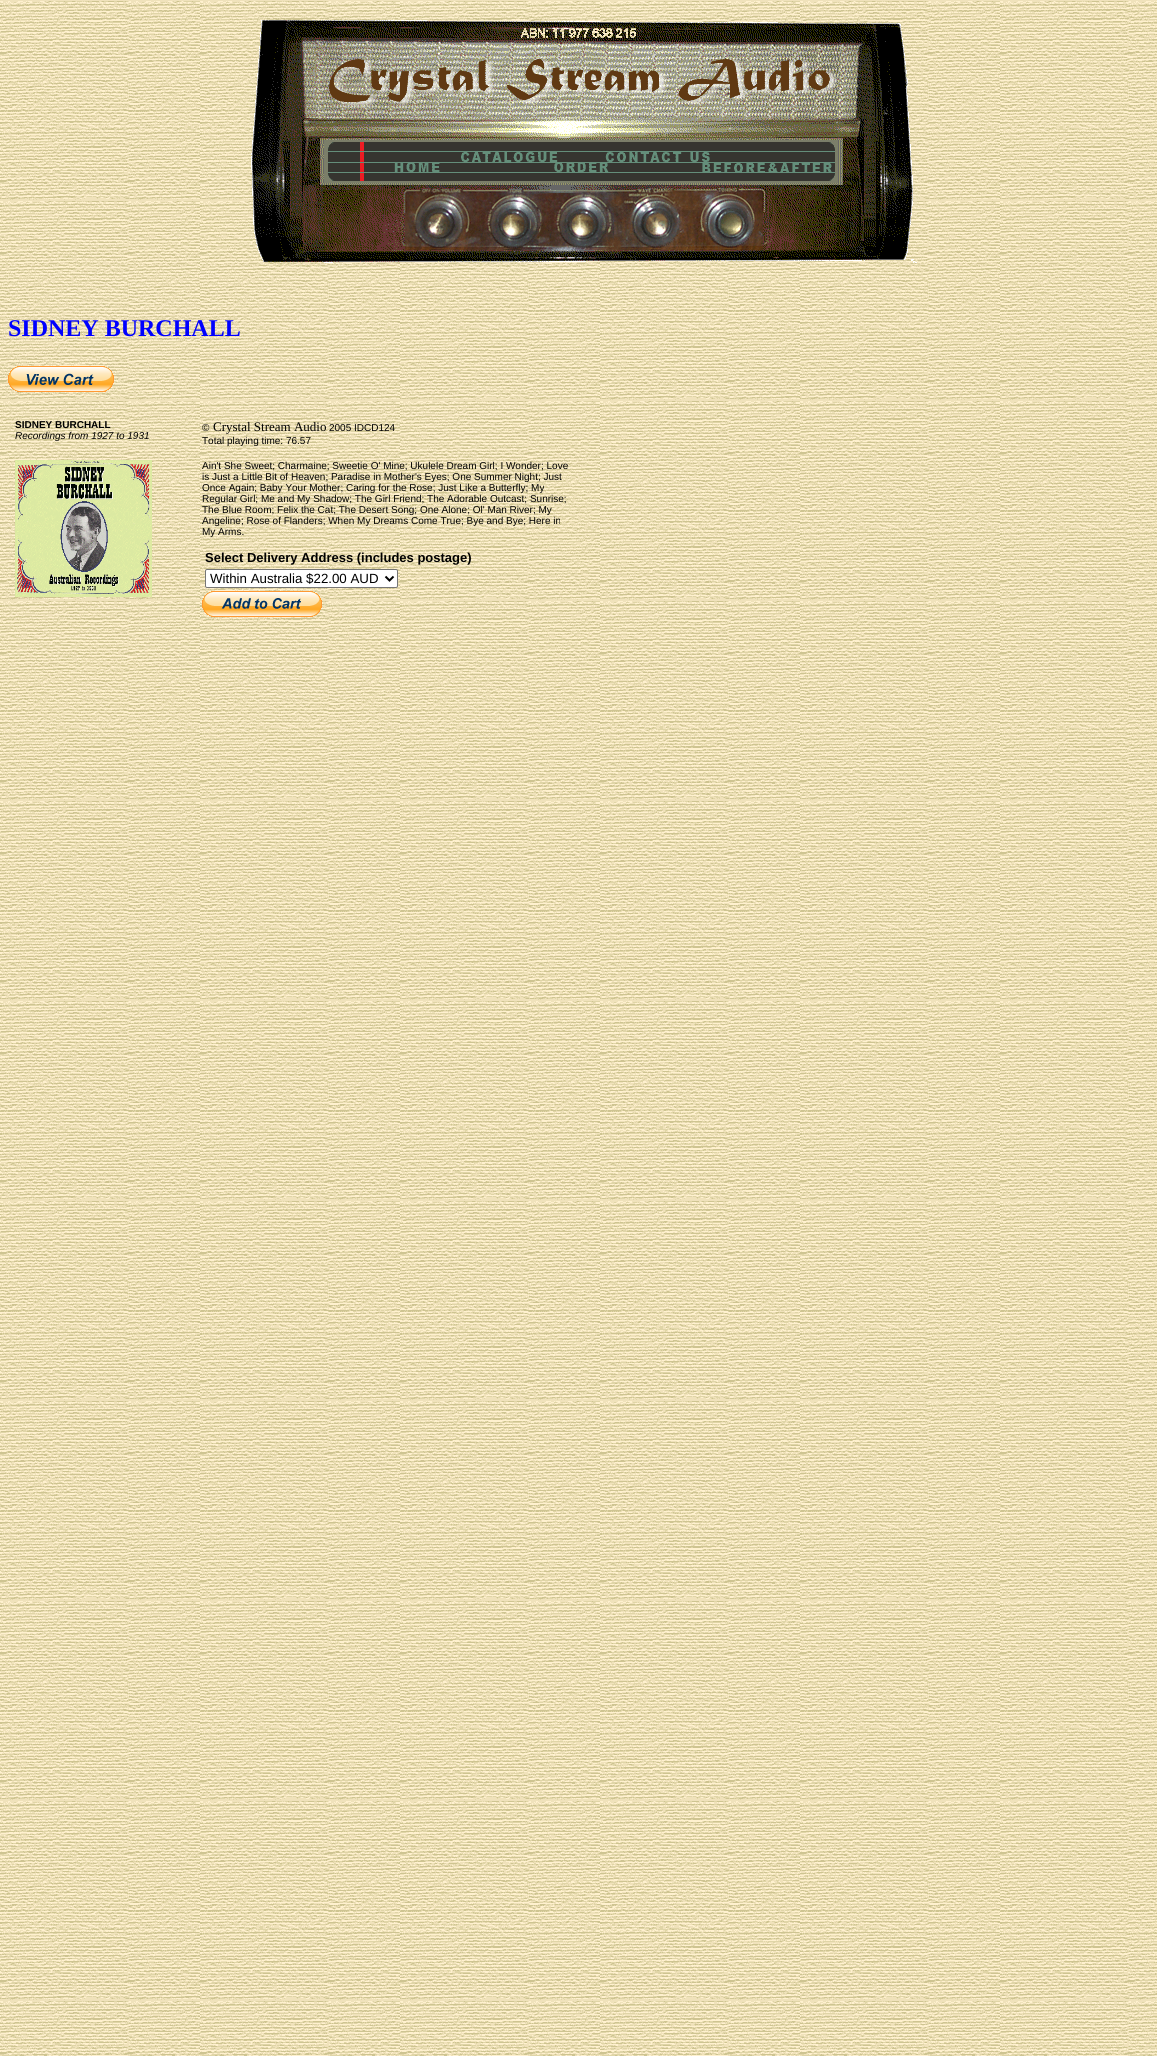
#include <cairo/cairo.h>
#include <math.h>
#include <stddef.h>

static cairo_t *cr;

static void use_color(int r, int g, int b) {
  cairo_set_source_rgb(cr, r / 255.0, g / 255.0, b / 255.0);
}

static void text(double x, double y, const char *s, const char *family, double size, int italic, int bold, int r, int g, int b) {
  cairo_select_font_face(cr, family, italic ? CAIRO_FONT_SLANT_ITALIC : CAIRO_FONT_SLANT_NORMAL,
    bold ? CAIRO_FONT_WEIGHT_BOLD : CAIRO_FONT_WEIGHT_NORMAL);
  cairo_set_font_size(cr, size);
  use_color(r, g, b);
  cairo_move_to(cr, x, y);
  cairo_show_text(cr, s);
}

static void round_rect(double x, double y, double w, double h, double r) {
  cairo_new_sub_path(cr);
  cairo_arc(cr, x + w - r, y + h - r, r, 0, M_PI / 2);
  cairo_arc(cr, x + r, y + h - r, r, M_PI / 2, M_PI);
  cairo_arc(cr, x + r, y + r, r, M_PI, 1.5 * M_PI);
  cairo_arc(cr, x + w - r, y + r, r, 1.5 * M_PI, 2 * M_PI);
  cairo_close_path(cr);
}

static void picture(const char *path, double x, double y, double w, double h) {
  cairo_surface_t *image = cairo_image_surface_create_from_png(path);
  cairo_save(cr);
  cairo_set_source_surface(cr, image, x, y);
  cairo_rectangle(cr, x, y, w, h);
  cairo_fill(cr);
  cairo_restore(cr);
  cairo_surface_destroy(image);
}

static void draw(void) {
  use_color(255, 255, 255);
  cairo_paint(cr);
  picture("img_01.png", 0, 0, 1157, 2056);
  picture("img_02.png", 253, 20, 657, 120);
  picture("img_03.png", 251, 140, 73, 122);
  picture("img_04.png", 324, 140, 514, 43);
  picture("img_05.png", 838, 140, 79, 123);
  picture("img_06.png", 324, 183, 514, 7);
  picture("img_07.png", 324, 190, 81, 73);
  picture("img_08.png", 405, 190, 74, 60);
  picture("img_09.png", 479, 190, 70, 60);
  picture("img_10.png", 549, 190, 72, 60);
  picture("img_11.png", 621, 190, 68, 60);
  picture("img_12.png", 689, 190, 74, 60);
  picture("img_13.png", 763, 190, 75, 71);
  picture("img_14.png", 405, 250, 358, 12);
  picture("img_15.png", 8, 366, 106, 26);
  picture("img_16.png", 15, 460, 137, 137);
  use_color(255, 255, 255);
  round_rect(205.5, 569.5, 192, 18, 1.5);
  cairo_fill_preserve(cr);
  use_color(118, 118, 118);
  cairo_set_line_width(cr, 1);
  cairo_stroke(cr);
  cairo_new_path(cr);
  cairo_move_to(cr, 385.5, 576.5);
  cairo_line_to(cr, 389.5, 580.5);
  cairo_line_to(cr, 393.5, 576.5);
  use_color(0, 0, 0);
  cairo_set_line_width(cr, 2);
  cairo_stroke(cr);
  picture("img_17.png", 202, 591, 120, 26);
  text(8, 336, "SIDNEY BURCHALL", "Liberation Serif", 24, 0, 1, 0, 0, 255);
  text(15, 428, "SIDNEY BURCHALL", "Liberation Sans", 10, 0, 1, 0, 0, 0);
  text(15, 439, "Recordings from 1927 to 1931", "Liberation Sans", 10, 1, 0, 0, 0, 0);
  text(202, 431, "©", "Liberation Sans", 10, 0, 0, 0, 0, 0);
  text(213, 431, "Crystal Stream Audio", "Liberation Serif", 13, 0, 0, 0, 0, 0);
  text(329, 431, "2005 IDCD124", "Liberation Sans", 10, 0, 0, 0, 0, 0);
  text(202, 444, "Total playing time: 76.57", "Liberation Sans", 10, 0, 0, 0, 0, 0);
  text(202, 469, "Ain't She Sweet; Charmaine; Sweetie O' Mine; Ukulele Dream Girl; I Wonder; Love", "Liberation Sans", 10, 0, 0, 0, 0, 0);
  text(202, 480, "is Just a Little Bit of Heaven; Paradise in Mother's Eyes; One Summer Night; Just", "Liberation Sans", 10, 0, 0, 0, 0, 0);
  text(202, 491, "Once Again; Baby Your Mother; Caring for the Rose; Just Like a Butterfly; My", "Liberation Sans", 10, 0, 0, 0, 0, 0);
  text(202, 502, "Regular Girl; Me and My Shadow; The Girl Friend; The Adorable Outcast; Sunrise;", "Liberation Sans", 10, 0, 0, 0, 0, 0);
  text(202, 513, "The Blue Room; Felix the Cat; The Desert Song; One Alone; Ol' Man River; My", "Liberation Sans", 10, 0, 0, 0, 0, 0);
  text(202, 524, "Angeline; Rose of Flanders; When My Dreams Come True; Bye and Bye; Here in", "Liberation Sans", 10, 0, 0, 0, 0, 0);
  text(202, 535, "My Arms.", "Liberation Sans", 10, 0, 0, 0, 0, 0);
  text(205, 562, "Select Delivery Address (includes postage)", "Liberation Sans", 13, 0, 1, 0, 0, 0);
  text(210, 583, "Within Australia $22.00 AUD", "Liberation Sans", 13.3, 0, 0, 0, 0, 0);
}

int main(void) {
  cairo_surface_t *surface = cairo_image_surface_create(CAIRO_FORMAT_RGB24, 1157, 2056);
  cr = cairo_create(surface);
  cairo_font_options_t *options = cairo_font_options_create();
  cairo_font_options_set_hint_metrics(options, CAIRO_HINT_METRICS_OFF);
  cairo_font_options_set_hint_style(options, CAIRO_HINT_STYLE_NONE);
  cairo_set_font_options(cr, options);
  cairo_set_miter_limit(cr, 4);
  draw();
  cairo_surface_write_to_png(surface, "out.png");
  cairo_font_options_destroy(options);
  cairo_destroy(cr);
  cairo_surface_destroy(surface);
  return 0;
}
